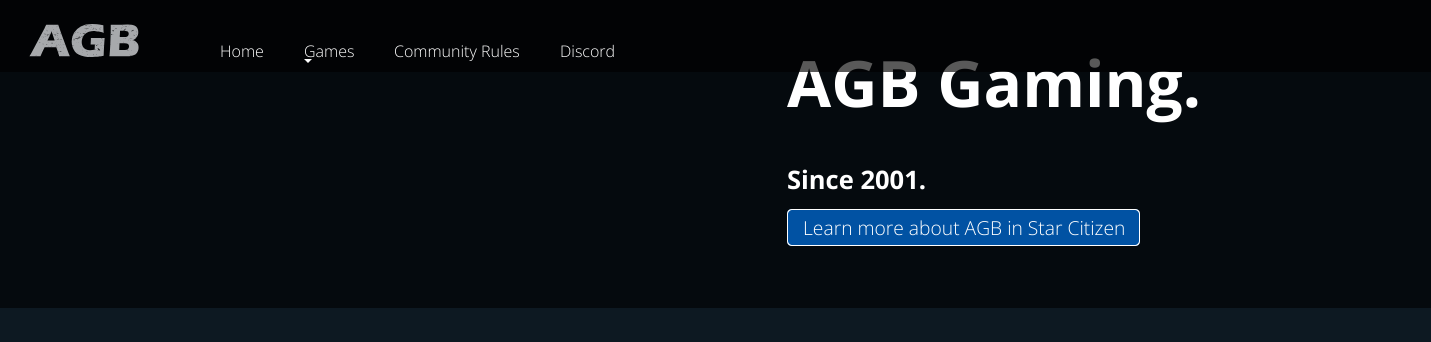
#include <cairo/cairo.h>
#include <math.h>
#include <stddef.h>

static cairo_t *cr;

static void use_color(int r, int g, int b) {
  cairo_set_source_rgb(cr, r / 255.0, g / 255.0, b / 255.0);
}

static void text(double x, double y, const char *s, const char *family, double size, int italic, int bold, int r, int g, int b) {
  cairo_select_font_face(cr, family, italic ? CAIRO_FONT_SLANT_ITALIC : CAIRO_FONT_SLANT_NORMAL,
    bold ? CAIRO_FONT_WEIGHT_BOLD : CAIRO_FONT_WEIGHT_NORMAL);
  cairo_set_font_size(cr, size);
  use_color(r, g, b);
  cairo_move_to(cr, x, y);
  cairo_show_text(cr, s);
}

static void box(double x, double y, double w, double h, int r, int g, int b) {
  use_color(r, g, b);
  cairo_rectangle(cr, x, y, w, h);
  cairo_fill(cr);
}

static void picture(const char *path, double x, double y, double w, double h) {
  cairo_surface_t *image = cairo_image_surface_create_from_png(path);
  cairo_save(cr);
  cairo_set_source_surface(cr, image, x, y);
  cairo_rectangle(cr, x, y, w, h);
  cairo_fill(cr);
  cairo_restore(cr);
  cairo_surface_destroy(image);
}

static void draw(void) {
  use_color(13, 25, 34);
  cairo_paint(cr);
  box(0, 0, 1431, 308, 5, 10, 14);
  use_color(1, 82, 163);
  cairo_new_path(cr);
  cairo_move_to(cr, 792, 209);
  cairo_line_to(cr, 904, 209);
  cairo_line_to(cr, 904, 246);
  cairo_line_to(cr, 792, 246);
  cairo_curve_to(cr, 789, 246, 787, 244, 787, 241);
  cairo_line_to(cr, 787, 214);
  cairo_curve_to(cr, 787, 211, 789, 209, 792, 209);
  cairo_close_path(cr);
  cairo_fill(cr);
  use_color(255, 255, 255);
  cairo_set_fill_rule(cr, CAIRO_FILL_RULE_EVEN_ODD);
  cairo_new_path(cr);
  cairo_move_to(cr, 792, 209);
  cairo_line_to(cr, 904, 209);
  cairo_line_to(cr, 904, 246);
  cairo_line_to(cr, 792, 246);
  cairo_curve_to(cr, 789, 246, 787, 244, 787, 241);
  cairo_line_to(cr, 787, 214);
  cairo_curve_to(cr, 787, 211, 789, 209, 792, 209);
  cairo_close_path(cr);
  cairo_move_to(cr, 792, 210);
  cairo_line_to(cr, 904, 210);
  cairo_line_to(cr, 904, 245);
  cairo_line_to(cr, 792, 245);
  cairo_curve_to(cr, 790, 245, 788, 243, 788, 241);
  cairo_line_to(cr, 788, 214);
  cairo_curve_to(cr, 788, 212, 790, 210, 792, 210);
  cairo_close_path(cr);
  cairo_fill(cr);
  use_color(1, 82, 163);
  cairo_new_path(cr);
  cairo_move_to(cr, 904, 209);
  cairo_line_to(cr, 1135, 209);
  cairo_curve_to(cr, 1138, 209, 1140, 211, 1140, 214);
  cairo_line_to(cr, 1140, 241);
  cairo_curve_to(cr, 1140, 244, 1138, 246, 1135, 246);
  cairo_line_to(cr, 904, 246);
  cairo_close_path(cr);
  cairo_fill(cr);
  use_color(255, 255, 255);
  cairo_new_path(cr);
  cairo_move_to(cr, 904, 209);
  cairo_line_to(cr, 1135, 209);
  cairo_curve_to(cr, 1138, 209, 1140, 211, 1140, 214);
  cairo_line_to(cr, 1140, 241);
  cairo_curve_to(cr, 1140, 244, 1138, 246, 1135, 246);
  cairo_line_to(cr, 904, 246);
  cairo_close_path(cr);
  cairo_move_to(cr, 904, 210);
  cairo_line_to(cr, 1135, 210);
  cairo_curve_to(cr, 1137, 210, 1139, 212, 1139, 214);
  cairo_line_to(cr, 1139, 241);
  cairo_curve_to(cr, 1139, 243, 1137, 245, 1135, 245);
  cairo_line_to(cr, 904, 245);
  cairo_close_path(cr);
  cairo_fill(cr);
  text(787, 107, "AGB Gaming.", "Open Sans", 64, 0, 1, 255, 255, 255);
  cairo_set_source_rgba(cr, 0, 0, 0, 0.65);
  cairo_rectangle(cr, 0, 0, 1431, 72);
  cairo_fill(cr);
  picture("img_01.png", 29, 24, 110, 33);
  text(560, 57, "Discord", "Open Sans Light", 16, 0, 0, 255, 255, 255);
  text(394, 57, "Community Rules", "Open Sans Light", 16, 0, 0, 255, 255, 255);
  cairo_set_fill_rule(cr, CAIRO_FILL_RULE_WINDING);
  cairo_new_path(cr);
  cairo_move_to(cr, 304, 59);
  cairo_line_to(cr, 312, 59);
  cairo_line_to(cr, 308, 63);
  cairo_close_path(cr);
  cairo_fill(cr);
  text(304, 57, "Games", "Open Sans Light", 16, 0, 0, 255, 255, 255);
  text(220, 57, "Home", "Open Sans Light", 16, 0, 0, 255, 255, 255);
  text(787, 189, "Since 2001.", "Open Sans", 25.5, 0, 1, 255, 255, 255);
  text(803, 235, "Learn more about AGB in Star Citizen", "Open Sans Light", 19.25, 0, 0, 255, 255, 255);
}

int main(void) {
  cairo_surface_t *surface = cairo_image_surface_create(CAIRO_FORMAT_RGB24, 1431, 342);
  cr = cairo_create(surface);
  cairo_font_options_t *options = cairo_font_options_create();
  cairo_font_options_set_hint_metrics(options, CAIRO_HINT_METRICS_OFF);
  cairo_font_options_set_hint_style(options, CAIRO_HINT_STYLE_NONE);
  cairo_set_font_options(cr, options);
  cairo_set_miter_limit(cr, 4);
  draw();
  cairo_surface_write_to_png(surface, "out.png");
  cairo_font_options_destroy(options);
  cairo_destroy(cr);
  cairo_surface_destroy(surface);
  return 0;
}
